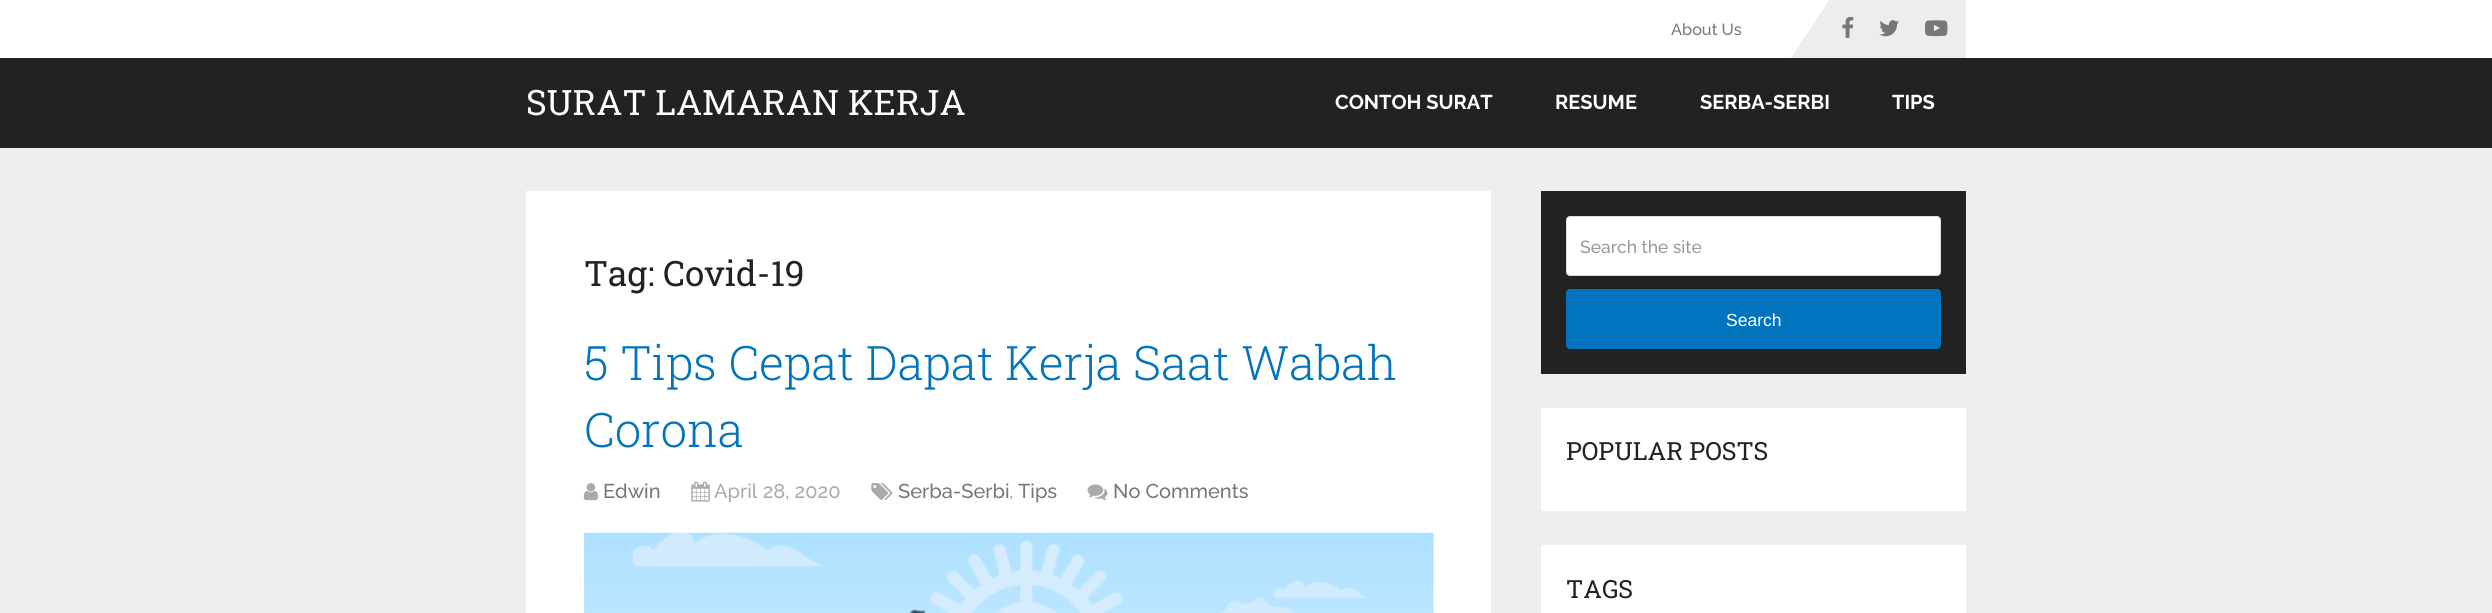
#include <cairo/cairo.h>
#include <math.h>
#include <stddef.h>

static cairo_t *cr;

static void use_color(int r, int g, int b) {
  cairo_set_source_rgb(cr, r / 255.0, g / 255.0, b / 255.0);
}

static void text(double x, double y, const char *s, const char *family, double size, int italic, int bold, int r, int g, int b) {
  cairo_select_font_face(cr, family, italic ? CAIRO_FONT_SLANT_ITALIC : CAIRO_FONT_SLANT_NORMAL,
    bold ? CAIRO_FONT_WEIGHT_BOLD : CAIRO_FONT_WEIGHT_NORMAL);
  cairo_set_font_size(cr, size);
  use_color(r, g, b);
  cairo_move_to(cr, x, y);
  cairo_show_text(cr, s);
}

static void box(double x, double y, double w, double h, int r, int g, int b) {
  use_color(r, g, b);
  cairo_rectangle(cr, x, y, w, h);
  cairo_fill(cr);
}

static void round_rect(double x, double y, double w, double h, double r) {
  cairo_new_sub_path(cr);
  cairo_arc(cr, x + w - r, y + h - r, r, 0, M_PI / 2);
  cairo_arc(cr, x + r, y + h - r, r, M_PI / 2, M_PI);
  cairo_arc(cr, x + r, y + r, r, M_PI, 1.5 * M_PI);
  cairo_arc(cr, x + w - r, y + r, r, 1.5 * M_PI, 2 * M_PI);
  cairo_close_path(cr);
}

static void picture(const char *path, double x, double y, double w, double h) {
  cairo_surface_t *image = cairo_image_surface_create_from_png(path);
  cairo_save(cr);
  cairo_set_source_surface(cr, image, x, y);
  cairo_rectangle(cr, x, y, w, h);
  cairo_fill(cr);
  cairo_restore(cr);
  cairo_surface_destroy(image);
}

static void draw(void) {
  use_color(238, 238, 238);
  cairo_paint(cr);
  box(0, 0, 2492, 58, 255, 255, 255);
  box(1829, 0, 137, 58, 237, 237, 237);
  cairo_new_path(cr);
  cairo_move_to(cr, 1829, 0);
  cairo_line_to(cr, 1829, 58);
  cairo_line_to(cr, 1791, 58);
  cairo_close_path(cr);
  cairo_fill(cr);
  picture("img_01.png", 1842, 17, 12, 21);
  picture("img_02.png", 1879, 20, 20, 17);
  picture("img_03.png", 1925, 20, 23, 17);
  box(0, 58, 2492, 90, 34, 34, 34);
  box(526, 191, 965, 422, 255, 255, 255);
  picture("img_04.png", 583, 483, 15, 18);
  picture("img_05.png", 691, 481, 19, 21);
  picture("img_06.png", 871, 483, 22, 17);
  picture("img_07.png", 1087, 484, 21, 17);
  picture("img_08.png", 583, 532, 851, 81);
  box(1541, 191, 425, 183, 34, 34, 34);
  use_color(255, 255, 255);
  round_rect(1566.5, 216.5, 374, 59, 3.5);
  cairo_fill_preserve(cr);
  use_color(221, 221, 221);
  cairo_set_line_width(cr, 1);
  cairo_stroke(cr);
  use_color(2, 116, 190);
  round_rect(1566, 289, 375, 60, 4);
  cairo_fill(cr);
  box(1541, 408, 425, 103, 255, 255, 255);
  box(1541, 545, 425, 68, 255, 255, 255);
  text(1671, 35, "About Us", "Raleway Medium", 16.25, 0, 0, 119, 119, 119);
  text(526, 115, "SURAT LAMARAN KERJA", "Roboto Slab", 35, 0, 0, 255, 255, 255);
  text(1335, 109, "CONTOH SURAT", "Raleway", 20, 0, 1, 255, 255, 255);
  text(1555, 109, "RESUME", "Raleway", 20, 0, 1, 255, 255, 255);
  text(1700, 109, "SERBA-SERBI", "Raleway", 20, 0, 1, 255, 255, 255);
  text(1892, 109, "TIPS", "Raleway", 20, 0, 1, 255, 255, 255);
  text(584, 286, "Tag: Covid-19", "Roboto Slab", 35, 0, 0, 34, 34, 34);
  text(584, 380, "5 Tips Cepat Dapat Kerja Saat Wabah", "Roboto Slab Light", 47.5, 0, 0, 2, 116, 190);
  text(584, 447, "Corona", "Roboto Slab Light", 47.5, 0, 0, 2, 116, 190);
  text(603, 498, "Edwin", "Raleway Medium", 20, 0, 0, 119, 119, 119);
  text(714, 498, "April 28, 2020", "Raleway Medium", 20, 0, 0, 170, 170, 170);
  text(898, 498, "Serba-Serbi", "Raleway Medium", 20, 0, 0, 119, 119, 119);
  text(1009, 498, ",", "Raleway Medium", 20, 0, 0, 170, 170, 170);
  text(1018, 498, "Tips", "Raleway Medium", 20, 0, 0, 119, 119, 119);
  text(1113, 498, "No Comments", "Raleway Medium", 20, 0, 0, 119, 119, 119);
  text(1580, 253, "Search the site", "Raleway Medium", 17.5, 0, 0, 153, 153, 153);
  text(1726, 326, "Search", "Liberation Sans", 17.5, 0, 0, 255, 255, 255);
  text(1566, 460, "POPULAR POSTS", "Roboto Slab", 25, 0, 0, 34, 34, 34);
  text(1566, 598, "TAGS", "Roboto Slab", 25, 0, 0, 34, 34, 34);
}

int main(void) {
  cairo_surface_t *surface = cairo_image_surface_create(CAIRO_FORMAT_RGB24, 2492, 613);
  cr = cairo_create(surface);
  cairo_font_options_t *options = cairo_font_options_create();
  cairo_font_options_set_hint_metrics(options, CAIRO_HINT_METRICS_OFF);
  cairo_font_options_set_hint_style(options, CAIRO_HINT_STYLE_NONE);
  cairo_set_font_options(cr, options);
  cairo_set_miter_limit(cr, 4);
  draw();
  cairo_surface_write_to_png(surface, "out.png");
  cairo_font_options_destroy(options);
  cairo_destroy(cr);
  cairo_surface_destroy(surface);
  return 0;
}
